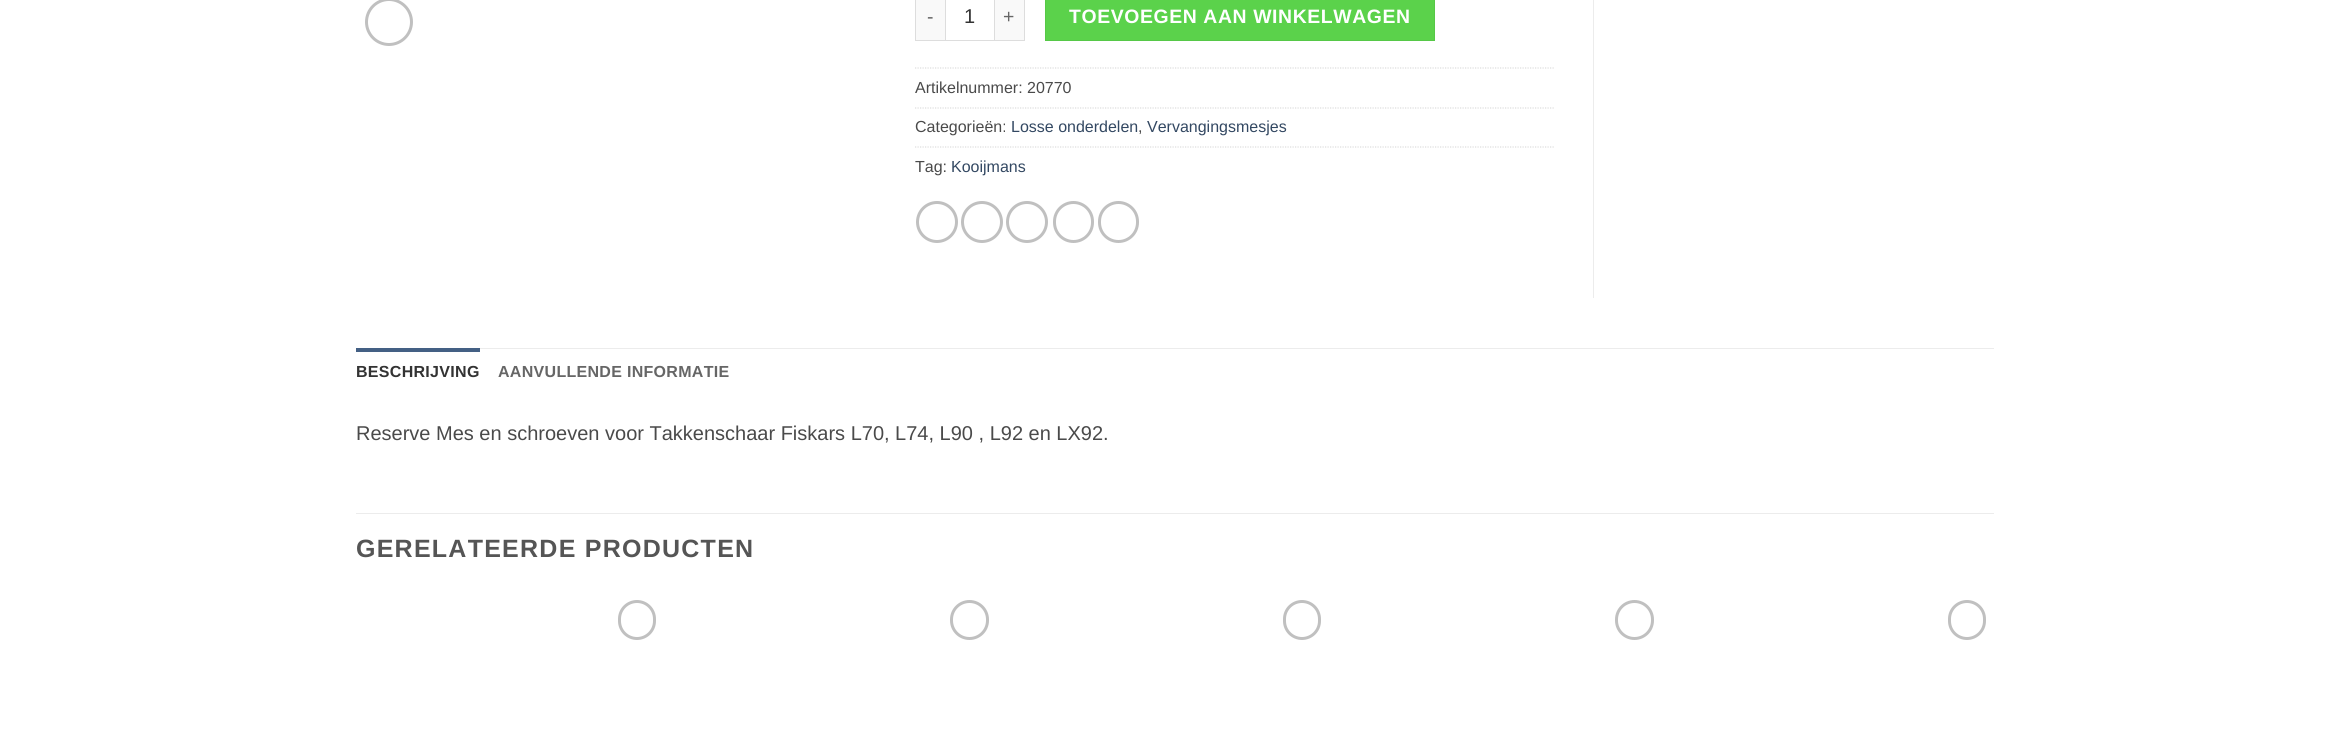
#include <cairo/cairo.h>
#include <math.h>
#include <stddef.h>

static cairo_t *cr;

static void use_color(int r, int g, int b) {
  cairo_set_source_rgb(cr, r / 255.0, g / 255.0, b / 255.0);
}

static void text(double x, double y, const char *s, const char *family, double size, int italic, int bold, int r, int g, int b) {
  cairo_select_font_face(cr, family, italic ? CAIRO_FONT_SLANT_ITALIC : CAIRO_FONT_SLANT_NORMAL,
    bold ? CAIRO_FONT_WEIGHT_BOLD : CAIRO_FONT_WEIGHT_NORMAL);
  cairo_set_font_size(cr, size);
  use_color(r, g, b);
  cairo_move_to(cr, x, y);
  cairo_show_text(cr, s);
}

static void spaced_text(double x, double y, const char *s, double letter, double word) {
  cairo_move_to(cr, x, y);
  while (*s) {
    char ch[5] = {0};
    int n = 0;
    do ch[n++] = *s++; while ((*s & 0xC0) == 0x80);
    cairo_show_text(cr, ch);
    cairo_rel_move_to(cr, letter + word * (*ch == ' '), 0);
  }
}

static void box(double x, double y, double w, double h, int r, int g, int b) {
  use_color(r, g, b);
  cairo_rectangle(cr, x, y, w, h);
  cairo_fill(cr);
}

static void round_rect(double x, double y, double w, double h, double r) {
  cairo_new_sub_path(cr);
  cairo_arc(cr, x + w - r, y + h - r, r, 0, M_PI / 2);
  cairo_arc(cr, x + r, y + h - r, r, M_PI / 2, M_PI);
  cairo_arc(cr, x + r, y + r, r, M_PI, 1.5 * M_PI);
  cairo_arc(cr, x + w - r, y + r, r, 1.5 * M_PI, 2 * M_PI);
  cairo_close_path(cr);
}

static void draw(void) {
  use_color(255, 255, 255);
  cairo_paint(cr);
  cairo_arc(cr, 389, 22, 22.5, 0, 2 * M_PI);
  use_color(192, 192, 192);
  cairo_set_line_width(cr, 3);
  cairo_stroke(cr);
  box(1593, 0, 1, 298, 236, 236, 236);
  box(916, 0, 29, 40, 249, 249, 249);
  box(915, 40, 30, 1, 221, 221, 221);
  box(915, 0, 1, 41, 221, 221, 221);
  cairo_rectangle(cr, 945.5, -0.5, 49, 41);
  cairo_set_line_width(cr, 1);
  cairo_stroke(cr);
  box(995, 0, 29, 40, 249, 249, 249);
  box(1024, 0, 1, 41, 221, 221, 221);
  box(995, 40, 30, 1, 221, 221, 221);
  use_color(91, 210, 75);
  cairo_rectangle(cr, 1045.5, -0.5, 389, 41);
  cairo_fill_preserve(cr);
  use_color(86, 200, 71);
  cairo_stroke(cr);
  cairo_new_path(cr);
  cairo_move_to(cr, 915, 68);
  cairo_line_to(cr, 1555, 68);
  use_color(221, 221, 221);
  cairo_set_line_width(cr, 1.2);
  cairo_set_dash(cr, (double[]){1.25, 1.25}, 2, 0);
  cairo_stroke(cr);
  cairo_new_path(cr);
  cairo_move_to(cr, 915, 108);
  cairo_line_to(cr, 1555, 108);
  cairo_stroke(cr);
  cairo_new_path(cr);
  cairo_move_to(cr, 915, 147);
  cairo_line_to(cr, 1555, 147);
  cairo_stroke(cr);
  cairo_arc(cr, 937, 222, 19.5, 0, 2 * M_PI);
  use_color(192, 192, 192);
  cairo_set_line_width(cr, 3);
  cairo_set_dash(cr, NULL, 0, 0);
  cairo_stroke(cr);
  cairo_arc(cr, 982, 222, 19.5, 0, 2 * M_PI);
  cairo_stroke(cr);
  cairo_arc(cr, 1027, 222, 19.5, 0, 2 * M_PI);
  cairo_stroke(cr);
  round_rect(1054.5, 202.5, 38, 39, 19);
  cairo_stroke(cr);
  round_rect(1099.5, 202.5, 38, 39, 19);
  cairo_stroke(cr);
  box(480, 348, 1514, 1, 236, 236, 236);
  box(356, 348, 124, 4, 68, 96, 132);
  box(356, 513, 1638, 1, 236, 236, 236);
  round_rect(619.5, 601.5, 35, 37, 17.5);
  use_color(192, 192, 192);
  cairo_stroke(cr);
  round_rect(951.5, 601.5, 36, 37, 18);
  cairo_stroke(cr);
  round_rect(1284.5, 601.5, 35, 37, 17.5);
  cairo_stroke(cr);
  round_rect(1616.5, 601.5, 36, 37, 18);
  cairo_stroke(cr);
  round_rect(1949.5, 601.5, 35, 37, 17.5);
  cairo_stroke(cr);
  cairo_select_font_face(cr, "Liberation Sans", CAIRO_FONT_SLANT_NORMAL, CAIRO_FONT_WEIGHT_NORMAL);
  cairo_set_font_size(cr, 19.4);
  use_color(102, 102, 102);
  spaced_text(927, 23, "-", 0.6, 0);
  text(964, 23, "1", "Liberation Sans", 20, 0, 0, 51, 51, 51);
  cairo_set_font_size(cr, 19.4);
  use_color(102, 102, 102);
  spaced_text(1003, 23, "+", 0.6, 0);
  cairo_select_font_face(cr, "Liberation Sans", CAIRO_FONT_SLANT_NORMAL, CAIRO_FONT_WEIGHT_BOLD);
  use_color(255, 255, 255);
  spaced_text(1069, 23, "TOEVOEGEN AAN WINKELWAGEN", 0.6, 0);
  text(915, 93, "Artikelnummer: 20770", "Liberation Sans", 16, 0, 0, 74, 74, 74);
  text(915, 132, "Categorieën:", "Liberation Sans", 16, 0, 0, 74, 74, 74);
  text(1011, 132, "Losse onderdelen", "Liberation Sans", 16, 0, 0, 51, 72, 98);
  text(1138, 132, ",", "Liberation Sans", 16, 0, 0, 74, 74, 74);
  text(1147, 132, "Vervangingsmesjes", "Liberation Sans", 16, 0, 0, 51, 72, 98);
  text(915, 172, "Tag:", "Liberation Sans", 16, 0, 0, 74, 74, 74);
  text(951, 172, "Kooijmans", "Liberation Sans", 16, 0, 0, 51, 72, 98);
  cairo_select_font_face(cr, "Liberation Sans", CAIRO_FONT_SLANT_NORMAL, CAIRO_FONT_WEIGHT_BOLD);
  use_color(51, 51, 51);
  spaced_text(356, 377, "BESCHRIJVING", 0.3, 0);
  use_color(102, 102, 102);
  spaced_text(498, 377, "AANVULLENDE INFORMATIE", 0.3, 0);
  text(356, 440, "Reserve Mes en schroeven voor Takkenschaar Fiskars L70, L74, L90 , L92 en LX92.", "Liberation Sans", 20, 0, 0, 74, 74, 74);
  cairo_select_font_face(cr, "Liberation Sans", CAIRO_FONT_SLANT_NORMAL, CAIRO_FONT_WEIGHT_BOLD);
  cairo_set_font_size(cr, 25);
  use_color(85, 85, 85);
  spaced_text(356, 557, "GERELATEERDE PRODUCTEN", 1.25, 0);
}

int main(void) {
  cairo_surface_t *surface = cairo_image_surface_create(CAIRO_FORMAT_RGB24, 2349, 751);
  cr = cairo_create(surface);
  cairo_font_options_t *options = cairo_font_options_create();
  cairo_font_options_set_hint_metrics(options, CAIRO_HINT_METRICS_OFF);
  cairo_font_options_set_hint_style(options, CAIRO_HINT_STYLE_NONE);
  cairo_set_font_options(cr, options);
  cairo_set_miter_limit(cr, 4);
  draw();
  cairo_surface_write_to_png(surface, "out.png");
  cairo_font_options_destroy(options);
  cairo_destroy(cr);
  cairo_surface_destroy(surface);
  return 0;
}
